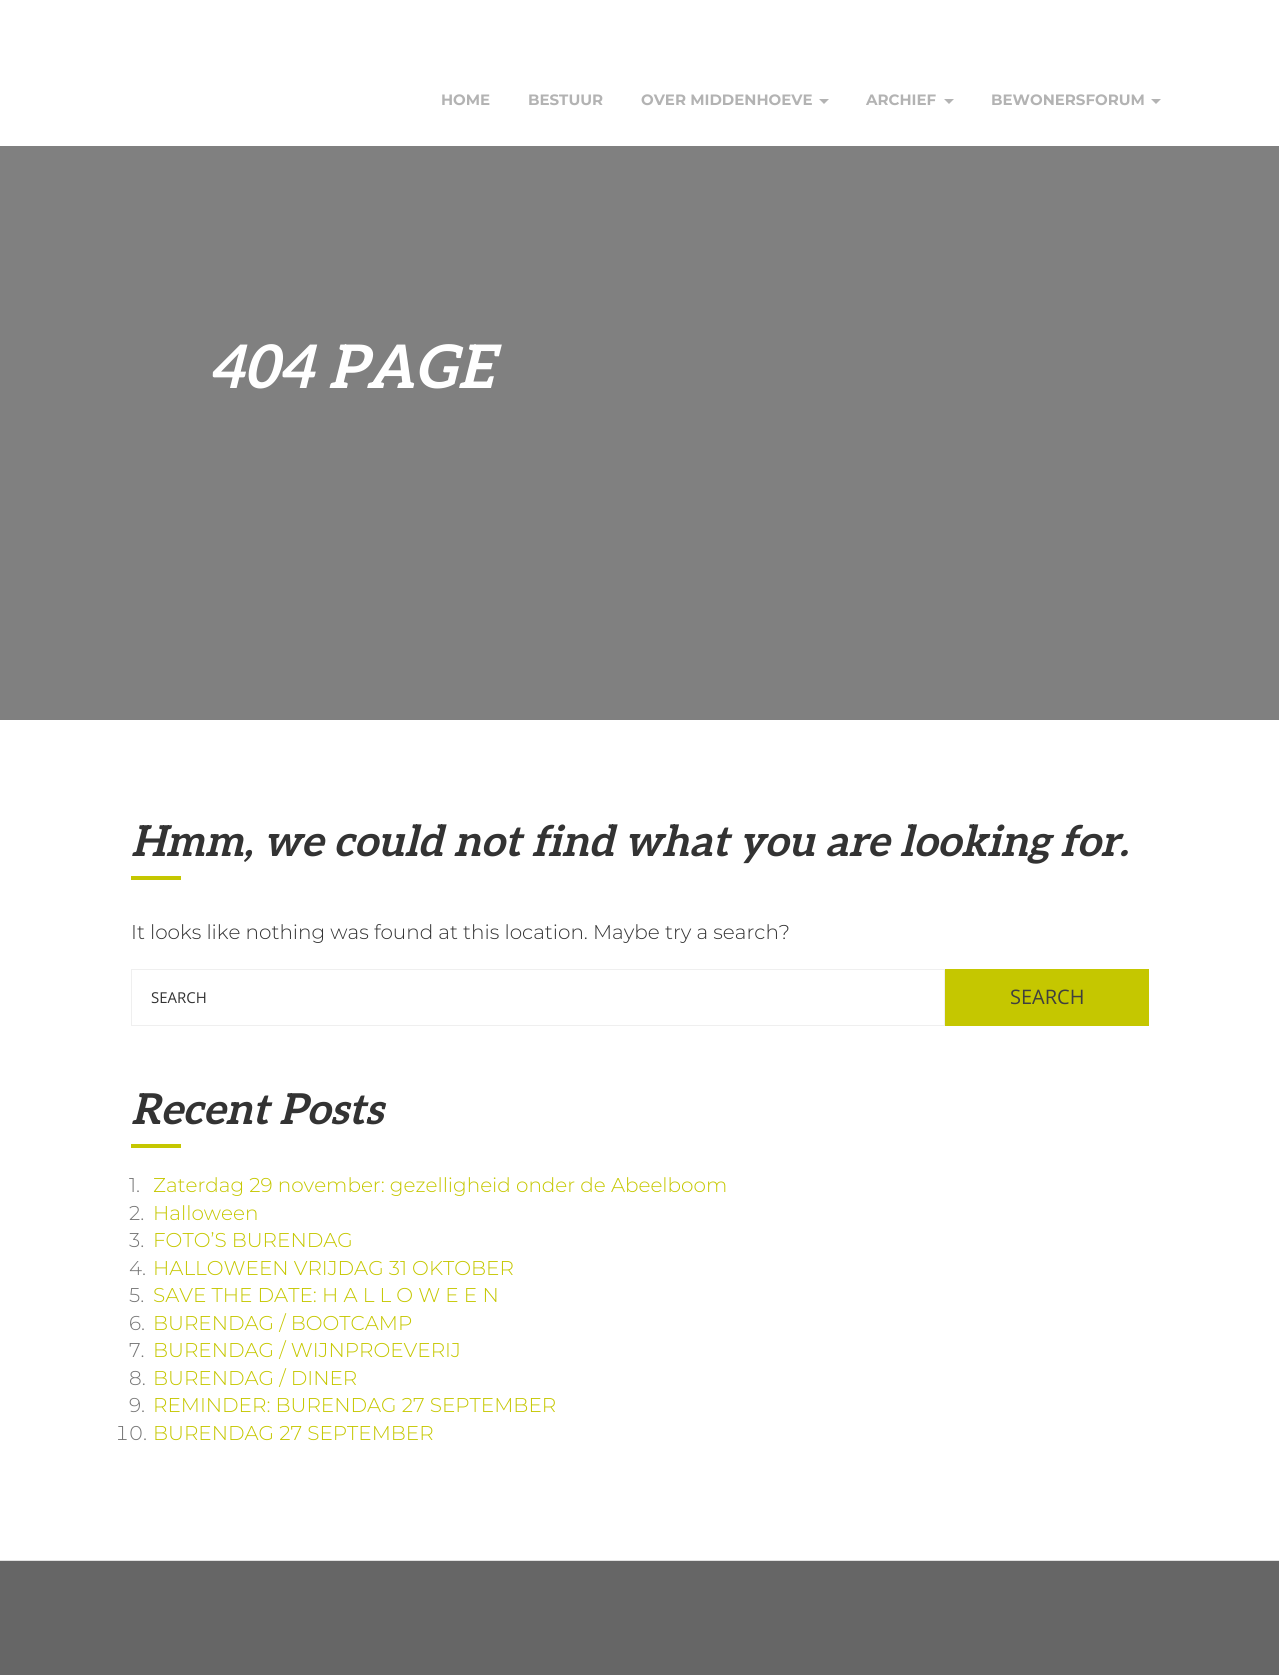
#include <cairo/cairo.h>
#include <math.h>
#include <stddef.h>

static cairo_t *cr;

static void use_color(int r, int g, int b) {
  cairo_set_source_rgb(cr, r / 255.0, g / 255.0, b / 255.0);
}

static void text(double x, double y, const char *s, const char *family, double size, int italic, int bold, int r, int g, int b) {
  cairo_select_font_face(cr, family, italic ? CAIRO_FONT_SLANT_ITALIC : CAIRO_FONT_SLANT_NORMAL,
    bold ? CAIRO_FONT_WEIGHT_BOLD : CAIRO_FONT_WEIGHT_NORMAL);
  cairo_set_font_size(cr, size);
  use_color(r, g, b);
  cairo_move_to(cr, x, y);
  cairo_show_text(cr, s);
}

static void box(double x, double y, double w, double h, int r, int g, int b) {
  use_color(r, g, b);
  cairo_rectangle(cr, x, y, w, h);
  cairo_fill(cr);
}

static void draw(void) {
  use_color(255, 255, 255);
  cairo_paint(cr);
  use_color(179, 179, 179);
  cairo_new_path(cr);
  cairo_move_to(cr, 819, 99);
  cairo_line_to(cr, 829, 99);
  cairo_line_to(cr, 824, 104);
  cairo_close_path(cr);
  cairo_fill(cr);
  cairo_new_path(cr);
  cairo_move_to(cr, 944, 99);
  cairo_line_to(cr, 954, 99);
  cairo_line_to(cr, 949, 104);
  cairo_close_path(cr);
  cairo_fill(cr);
  cairo_new_path(cr);
  cairo_move_to(cr, 1151, 99);
  cairo_line_to(cr, 1161, 99);
  cairo_line_to(cr, 1156, 104);
  cairo_close_path(cr);
  cairo_fill(cr);
  box(0, 146, 1279, 574, 128, 128, 128);
  box(0, 1560, 1279, 1, 225, 225, 225);
  box(131, 876, 50, 4, 197, 199, 0);
  cairo_rectangle(cr, 131.5, 969.5, 813, 56);
  use_color(239, 239, 239);
  cairo_set_line_width(cr, 1);
  cairo_stroke(cr);
  box(945, 969, 204, 57, 197, 199, 0);
  box(131, 1144, 50, 4, 197, 199, 0);
  box(0, 1561, 1279, 114, 102, 102, 102);
  text(441, 105, "HOME", "Montserrat", 15, 0, 1, 179, 179, 179);
  text(528, 105, "BESTUUR", "Montserrat", 15, 0, 1, 179, 179, 179);
  text(641, 105, "OVER MIDDENHOEVE", "Montserrat", 15, 0, 1, 179, 179, 179);
  text(866, 105, "ARCHIEF", "Montserrat", 15, 0, 1, 179, 179, 179);
  text(991, 105, "BEWONERSFORUM", "Montserrat", 15, 0, 1, 179, 179, 179);
  text(208, 388, "404 PAGE", "Aleo", 60, 1, 1, 255, 255, 255);
  text(131, 856, "Hmm, we could not find what you are looking for.", "Aleo", 42.5, 1, 1, 51, 51, 51);
  text(131, 939, "It looks like nothing was found at this location. Maybe try a search?", "Montserrat Light", 20, 0, 0, 51, 51, 51);
  text(151, 1003, "SEARCH", "Open Sans", 15, 0, 0, 51, 51, 51);
  text(1010, 1004, "SEARCH", "Open Sans", 20, 0, 0, 63, 63, 63);
  text(131, 1124, "Recent Posts", "Aleo", 42.5, 1, 1, 51, 51, 51);
  text(129, 1192, "1.", "Montserrat Light", 20, 0, 0, 118, 118, 118);
  text(153, 1192, "Zaterdag 29 november: gezelligheid onder de Abeelboom", "Montserrat Light", 20, 0, 0, 197, 199, 0);
  text(129, 1220, "2.", "Montserrat Light", 20, 0, 0, 118, 118, 118);
  text(153, 1220, "Halloween", "Montserrat Light", 20, 0, 0, 197, 199, 0);
  text(129, 1247, "3.", "Montserrat Light", 20, 0, 0, 118, 118, 118);
  text(153, 1247, "FOTO’S BURENDAG", "Montserrat Light", 20, 0, 0, 197, 199, 0);
  text(129, 1275, "4.", "Montserrat Light", 20, 0, 0, 118, 118, 118);
  text(153, 1275, "HALLOWEEN VRIJDAG 31 OKTOBER", "Montserrat Light", 20, 0, 0, 197, 199, 0);
  text(129, 1302, "5.", "Montserrat Light", 20, 0, 0, 118, 118, 118);
  text(153, 1302, "SAVE THE DATE: H A L L O W E E N", "Montserrat Light", 20, 0, 0, 197, 199, 0);
  text(129, 1330, "6.", "Montserrat Light", 20, 0, 0, 118, 118, 118);
  text(153, 1330, "BURENDAG / BOOTCAMP", "Montserrat Light", 20, 0, 0, 197, 199, 0);
  text(129, 1357, "7.", "Montserrat Light", 20, 0, 0, 118, 118, 118);
  text(153, 1357, "BURENDAG / WIJNPROEVERIJ", "Montserrat Light", 20, 0, 0, 197, 199, 0);
  text(129, 1385, "8.", "Montserrat Light", 20, 0, 0, 118, 118, 118);
  text(153, 1385, "BURENDAG / DINER", "Montserrat Light", 20, 0, 0, 197, 199, 0);
  text(129, 1412, "9.", "Montserrat Light", 20, 0, 0, 118, 118, 118);
  text(153, 1412, "REMINDER: BURENDAG 27 SEPTEMBER", "Montserrat Light", 20, 0, 0, 197, 199, 0);
  text(115, 1440, "10.", "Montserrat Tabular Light", 20, 0, 0, 118, 118, 118);
  text(153, 1440, "BURENDAG 27 SEPTEMBER", "Montserrat Light", 20, 0, 0, 197, 199, 0);
}

int main(void) {
  cairo_surface_t *surface = cairo_image_surface_create(CAIRO_FORMAT_RGB24, 1279, 1675);
  cr = cairo_create(surface);
  cairo_font_options_t *options = cairo_font_options_create();
  cairo_font_options_set_hint_metrics(options, CAIRO_HINT_METRICS_OFF);
  cairo_font_options_set_hint_style(options, CAIRO_HINT_STYLE_NONE);
  cairo_set_font_options(cr, options);
  cairo_set_miter_limit(cr, 4);
  draw();
  cairo_surface_write_to_png(surface, "out.png");
  cairo_font_options_destroy(options);
  cairo_destroy(cr);
  cairo_surface_destroy(surface);
  return 0;
}
